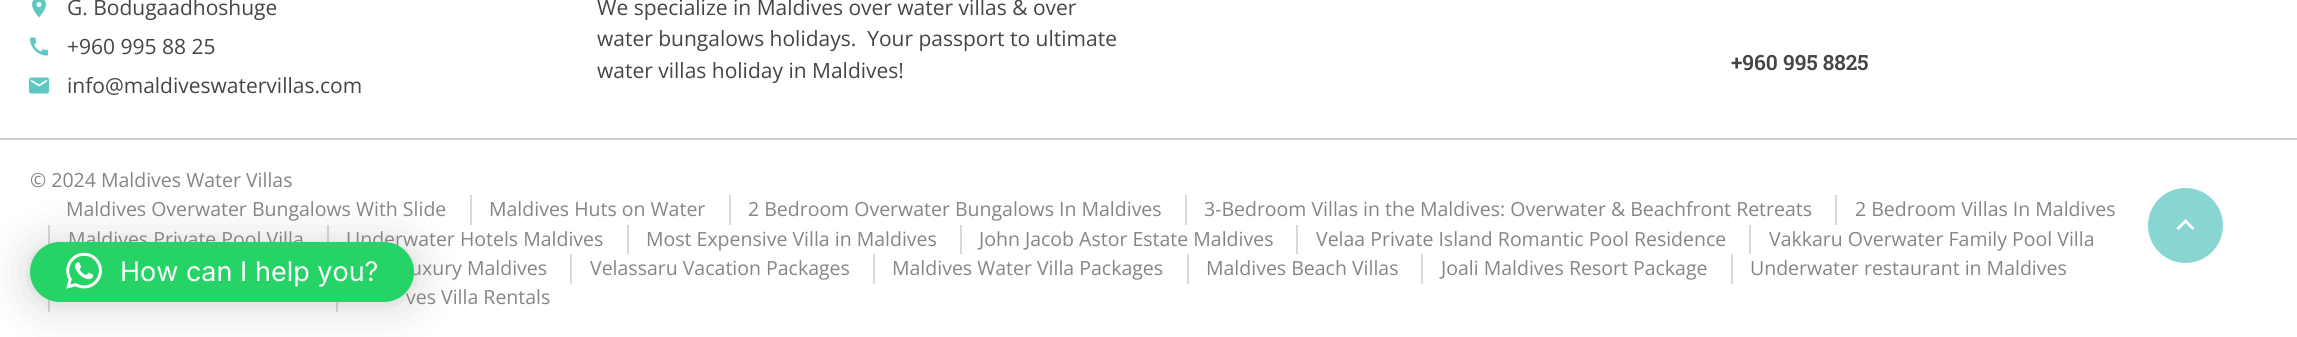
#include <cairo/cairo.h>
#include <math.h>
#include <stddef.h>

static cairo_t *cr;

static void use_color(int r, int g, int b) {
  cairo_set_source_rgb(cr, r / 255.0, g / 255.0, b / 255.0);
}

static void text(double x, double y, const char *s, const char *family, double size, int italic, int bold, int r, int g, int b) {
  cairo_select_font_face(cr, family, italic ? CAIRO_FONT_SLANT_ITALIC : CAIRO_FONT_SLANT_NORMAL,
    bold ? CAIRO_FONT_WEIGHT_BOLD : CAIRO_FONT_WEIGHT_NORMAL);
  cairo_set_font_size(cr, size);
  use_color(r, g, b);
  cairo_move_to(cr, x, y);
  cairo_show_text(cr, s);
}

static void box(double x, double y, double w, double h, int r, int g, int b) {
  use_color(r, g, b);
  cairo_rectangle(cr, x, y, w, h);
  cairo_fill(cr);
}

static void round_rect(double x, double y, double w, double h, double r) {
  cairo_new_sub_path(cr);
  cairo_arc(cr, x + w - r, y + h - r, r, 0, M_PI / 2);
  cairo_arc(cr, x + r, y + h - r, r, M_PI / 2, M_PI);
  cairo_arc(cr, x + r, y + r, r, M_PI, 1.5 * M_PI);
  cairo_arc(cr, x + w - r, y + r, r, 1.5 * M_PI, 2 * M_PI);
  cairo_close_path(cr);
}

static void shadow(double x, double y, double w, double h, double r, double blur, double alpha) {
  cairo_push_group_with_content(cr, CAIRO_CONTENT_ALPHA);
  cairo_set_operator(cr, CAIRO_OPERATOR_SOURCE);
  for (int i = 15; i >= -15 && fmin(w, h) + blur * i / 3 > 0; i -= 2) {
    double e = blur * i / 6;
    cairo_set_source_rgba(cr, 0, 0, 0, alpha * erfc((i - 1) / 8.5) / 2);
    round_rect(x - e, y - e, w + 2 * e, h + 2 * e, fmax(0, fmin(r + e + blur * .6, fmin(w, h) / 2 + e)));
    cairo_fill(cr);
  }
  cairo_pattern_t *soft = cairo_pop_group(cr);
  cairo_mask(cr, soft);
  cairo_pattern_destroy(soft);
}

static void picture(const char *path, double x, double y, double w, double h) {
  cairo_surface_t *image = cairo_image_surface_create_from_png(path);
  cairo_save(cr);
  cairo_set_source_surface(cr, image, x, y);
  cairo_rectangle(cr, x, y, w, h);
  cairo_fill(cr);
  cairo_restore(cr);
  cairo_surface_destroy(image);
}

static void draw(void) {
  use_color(255, 255, 255);
  cairo_paint(cr);
  box(0, 138, 2297, 2, 204, 204, 204);
  picture("img_01.png", 32, 0, 14, 18);
  picture("img_02.png", 30, 37, 18, 19);
  picture("img_03.png", 29, 77, 20, 17);
  box(470, 195, 2, 30, 217, 217, 217);
  box(729, 195, 2, 30, 217, 217, 217);
  box(1185, 195, 2, 30, 217, 217, 217);
  box(1835, 195, 2, 30, 217, 217, 217);
  box(48, 225, 2, 20, 217, 217, 217);
  box(327, 225, 2, 17, 217, 217, 217);
  box(627, 225, 2, 29, 217, 217, 217);
  box(960, 225, 2, 29, 217, 217, 217);
  box(1296, 225, 2, 29, 217, 217, 217);
  box(1749, 225, 2, 29, 217, 217, 217);
  box(570, 254, 2, 30, 217, 217, 217);
  box(873, 254, 2, 30, 217, 217, 217);
  box(1187, 254, 2, 30, 217, 217, 217);
  box(1421, 254, 2, 30, 217, 217, 217);
  box(1731, 254, 2, 30, 217, 217, 217);
  box(48, 299, 2, 13, 217, 217, 217);
  box(336, 302, 2, 10, 217, 217, 217);
  use_color(135, 214, 209);
  cairo_arc(cr, 2185.5, 225.5, 37.5, 0, 2 * M_PI);
  cairo_fill(cr);
  use_color(255, 255, 255);
  cairo_new_path(cr);
  cairo_move_to(cr, 2178.5, 230);
  cairo_line_to(cr, 2176.5, 228);
  cairo_line_to(cr, 2185.5, 219);
  cairo_line_to(cr, 2194.5, 228);
  cairo_line_to(cr, 2192.5, 230);
  cairo_line_to(cr, 2185.5, 223);
  cairo_close_path(cr);
  cairo_fill(cr);
  use_color(0, 0, 0);
  shadow(30, 245, 384, 60, 30, 24, 0.16);
  shadow(30, 243, 384, 60, 30, 4.5, 0.06);
  text(67, 15, "G. Bodugaadhoshuge", "Open Sans", 21, 0, 0, 69, 69, 69);
  text(67, 54, "+960 995 88 25", "Open Sans", 21, 0, 0, 69, 69, 69);
  text(67, 93, "info@maldiveswatervillas.com", "Open Sans", 21, 0, 0, 69, 69, 69);
  text(597, 15, "We specialize in Maldives over water villas & over", "Open Sans", 21, 0, 0, 69, 69, 69);
  text(597, 46, "water bungalows holidays.  Your passport to ultimate", "Open Sans", 21, 0, 0, 69, 69, 69);
  text(597, 78, "water villas holiday in Maldives!", "Open Sans", 21, 0, 0, 69, 69, 69);
  text(1731, 70, "+960 995 8825", "Roboto Slab SemiBold", 21, 0, 0, 69, 69, 69);
  text(30, 187, "© 2024 Maldives Water Villas", "Open Sans", 19.5, 0, 0, 133, 133, 133);
  text(66, 216, "Maldives Overwater Bungalows With Slide", "Open Sans", 19.5, 0, 0, 133, 133, 133);
  text(489, 216, "Maldives Huts on Water", "Open Sans", 19.5, 0, 0, 133, 133, 133);
  text(748, 216, "2 Bedroom Overwater Bungalows In Maldives", "Open Sans", 19.5, 0, 0, 133, 133, 133);
  text(1204, 216, "3-Bedroom Villas in the Maldives: Overwater & Beachfront Retreats", "Open Sans", 19.5, 0, 0, 133, 133, 133);
  text(1855, 216, "2 Bedroom Villas In Maldives", "Open Sans", 19.5, 0, 0, 133, 133, 133);
  text(68, 246, "Maldives Private Pool Villa", "Open Sans", 19.5, 0, 0, 133, 133, 133);
  text(346, 246, "Underwater Hotels Maldives", "Open Sans", 19.5, 0, 0, 133, 133, 133);
  text(646, 246, "Most Expensive Villa in Maldives", "Open Sans", 19.5, 0, 0, 133, 133, 133);
  text(979, 246, "John Jacob Astor Estate Maldives", "Open Sans", 19.5, 0, 0, 133, 133, 133);
  text(1316, 246, "Velaa Private Island Romantic Pool Residence", "Open Sans", 19.5, 0, 0, 133, 133, 133);
  text(1769, 246, "Vakkaru Overwater Family Pool Villa", "Open Sans", 19.5, 0, 0, 133, 133, 133);
  text(410, 275, "uxury Maldives", "Open Sans", 19.5, 0, 0, 133, 133, 133);
  text(590, 275, "Velassaru Vacation Packages", "Open Sans", 19.5, 0, 0, 133, 133, 133);
  text(892, 275, "Maldives Water Villa Packages", "Open Sans", 19.5, 0, 0, 133, 133, 133);
  text(1206, 275, "Maldives Beach Villas", "Open Sans", 19.5, 0, 0, 133, 133, 133);
  text(1441, 275, "Joali Maldives Resort Package", "Open Sans", 19.5, 0, 0, 133, 133, 133);
  text(1750, 275, "Underwater restaurant in Maldives", "Open Sans", 19.5, 0, 0, 133, 133, 133);
  text(406, 304, "ves Villa Rentals", "Open Sans", 19.5, 0, 0, 133, 133, 133);
  use_color(37, 211, 102);
  round_rect(30, 242, 384, 60, 30);
  cairo_fill(cr);
  picture("img_04.png", 66, 252, 36, 37);
  text(120, 281, "How can I help you?", "Inter", 27, 0, 0, 255, 255, 255);
}

int main(void) {
  cairo_surface_t *surface = cairo_image_surface_create(CAIRO_FORMAT_RGB24, 2297, 337);
  cr = cairo_create(surface);
  cairo_font_options_t *options = cairo_font_options_create();
  cairo_font_options_set_hint_metrics(options, CAIRO_HINT_METRICS_OFF);
  cairo_font_options_set_hint_style(options, CAIRO_HINT_STYLE_NONE);
  cairo_set_font_options(cr, options);
  cairo_set_miter_limit(cr, 4);
  draw();
  cairo_surface_write_to_png(surface, "out.png");
  cairo_font_options_destroy(options);
  cairo_destroy(cr);
  cairo_surface_destroy(surface);
  return 0;
}
